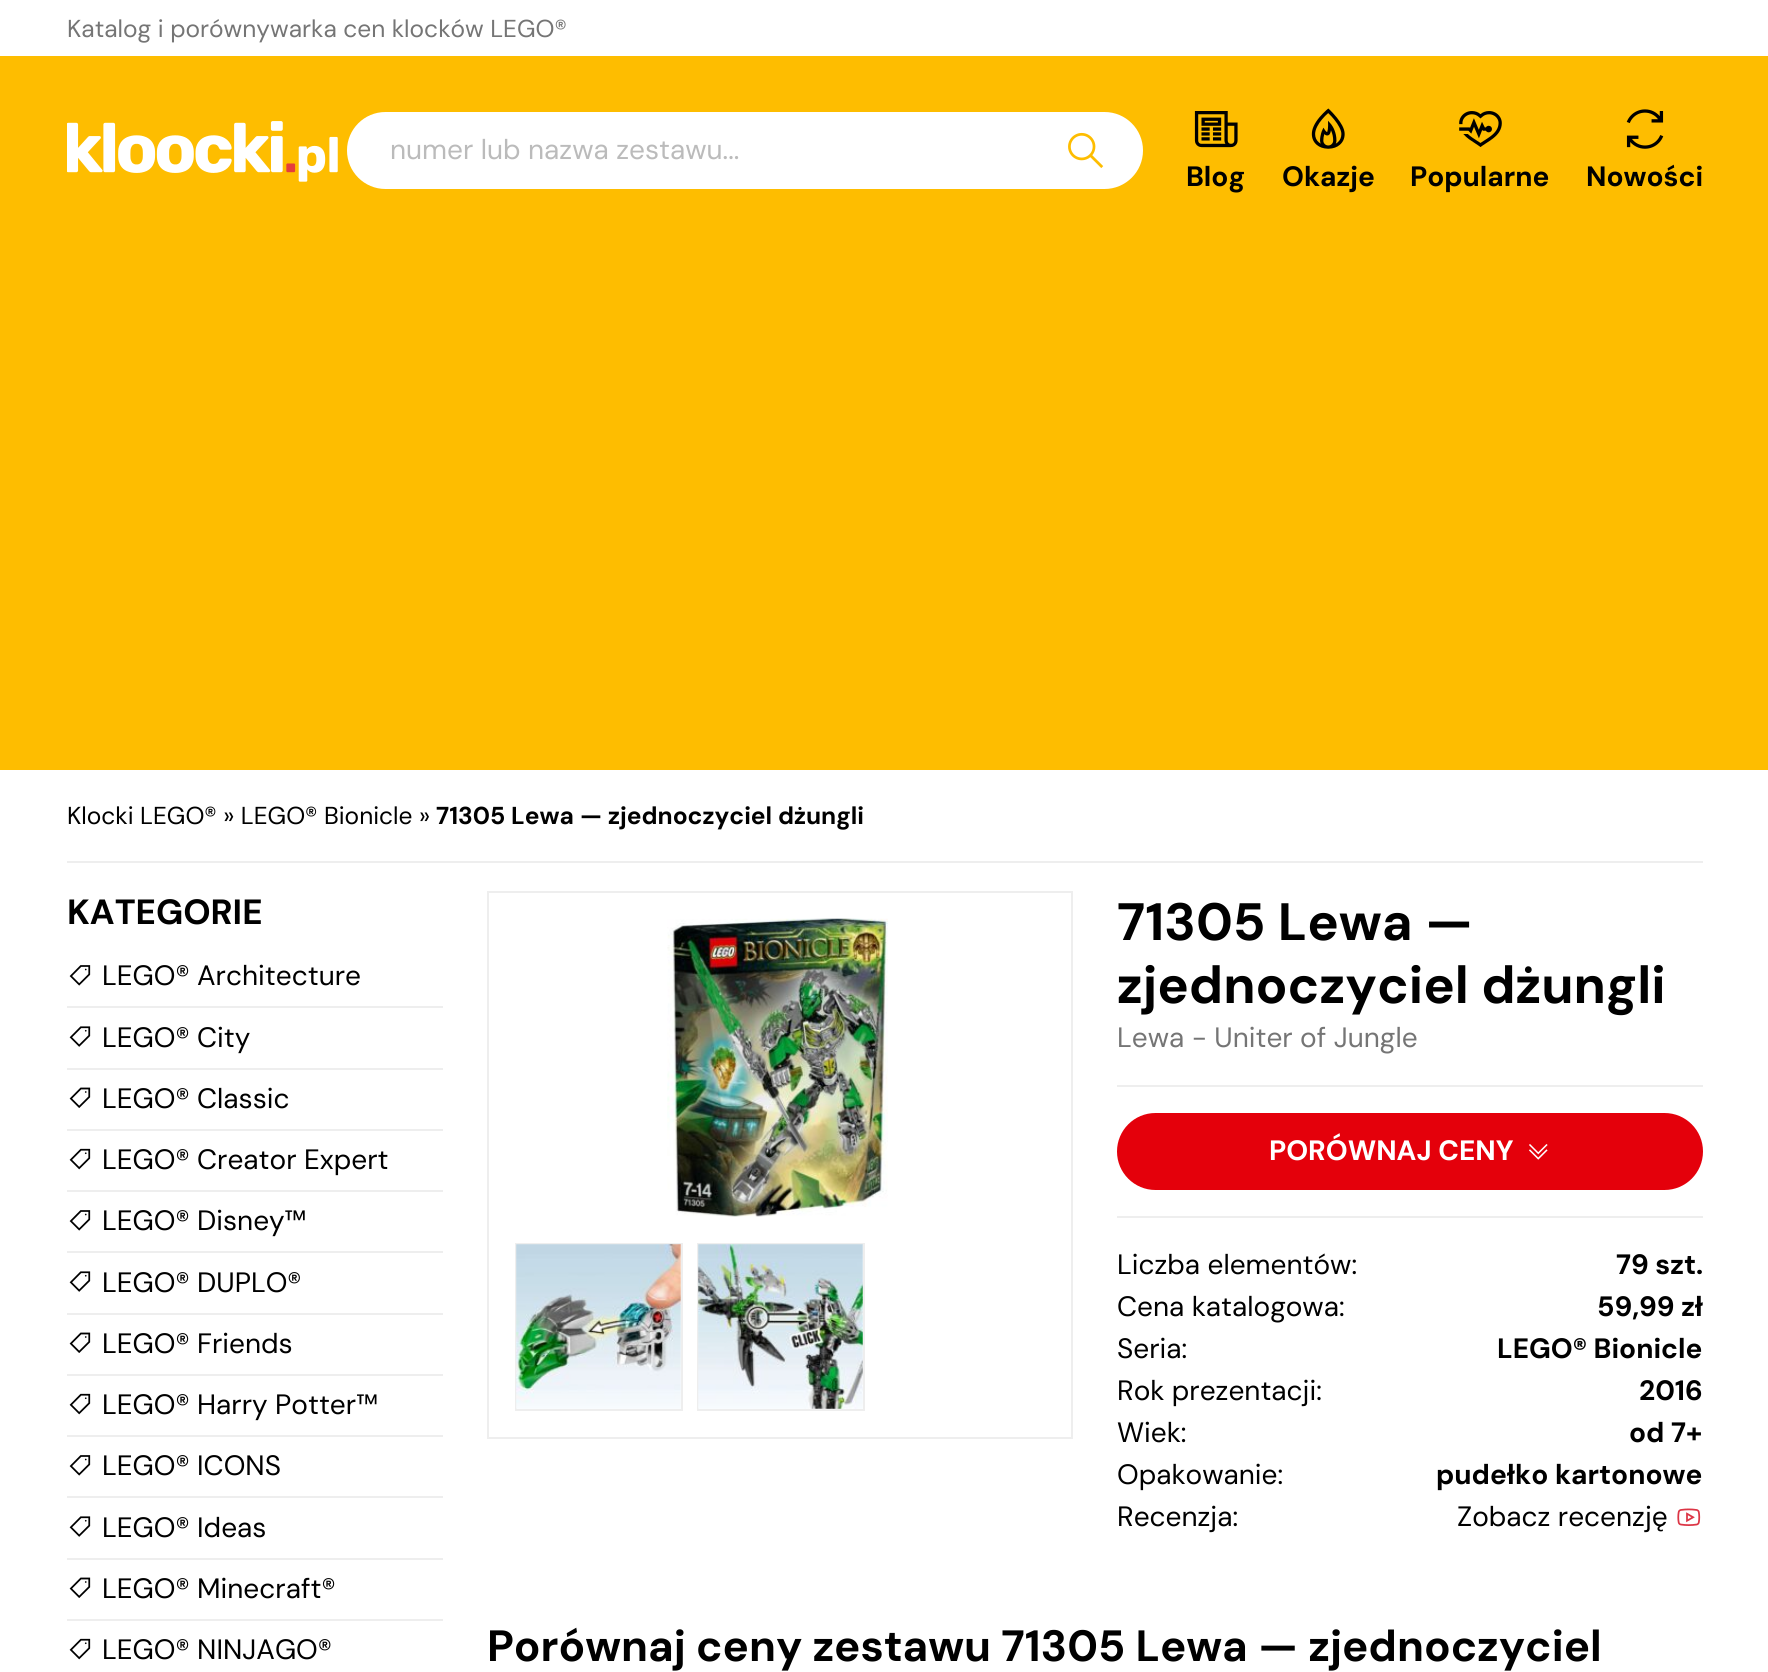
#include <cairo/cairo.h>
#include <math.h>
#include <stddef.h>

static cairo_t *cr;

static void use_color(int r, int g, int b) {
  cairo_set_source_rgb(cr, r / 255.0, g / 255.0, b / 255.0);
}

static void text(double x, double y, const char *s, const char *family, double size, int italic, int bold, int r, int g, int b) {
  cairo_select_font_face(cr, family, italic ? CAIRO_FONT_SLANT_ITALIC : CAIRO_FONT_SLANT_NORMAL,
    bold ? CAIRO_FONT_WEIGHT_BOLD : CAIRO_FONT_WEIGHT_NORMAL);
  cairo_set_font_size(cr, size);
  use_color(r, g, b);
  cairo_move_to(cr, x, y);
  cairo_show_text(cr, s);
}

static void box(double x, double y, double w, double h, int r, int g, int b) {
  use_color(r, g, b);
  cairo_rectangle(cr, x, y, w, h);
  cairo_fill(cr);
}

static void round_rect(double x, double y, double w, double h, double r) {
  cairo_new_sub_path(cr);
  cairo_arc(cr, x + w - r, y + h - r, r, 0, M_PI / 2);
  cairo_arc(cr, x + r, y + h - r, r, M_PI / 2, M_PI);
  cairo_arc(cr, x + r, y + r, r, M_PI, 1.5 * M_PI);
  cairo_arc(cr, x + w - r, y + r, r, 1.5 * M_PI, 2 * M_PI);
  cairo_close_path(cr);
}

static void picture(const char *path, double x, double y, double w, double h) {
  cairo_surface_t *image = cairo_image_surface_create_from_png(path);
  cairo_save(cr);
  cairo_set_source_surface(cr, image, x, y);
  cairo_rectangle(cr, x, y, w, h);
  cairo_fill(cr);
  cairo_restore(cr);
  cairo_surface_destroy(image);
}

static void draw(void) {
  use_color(255, 255, 255);
  cairo_paint(cr);
  box(0, 56, 1768, 714, 254, 189, 0);
  picture("img_01.png", 67, 121, 271, 61);
  use_color(255, 255, 255);
  round_rect(347, 112, 796, 77, 38.5);
  cairo_fill(cr);
  picture("img_02.png", 1068, 132, 36, 36);
  picture("img_03.png", 1194, 111, 44, 37);
  picture("img_04.png", 1311, 108, 34, 41);
  picture("img_05.png", 1459, 111, 43, 36);
  picture("img_06.png", 1626, 109, 38, 40);
  box(67, 861, 1636, 2, 238, 238, 238);
  box(67, 1006, 376, 2, 238, 238, 238);
  picture("img_07.png", 69, 965, 22, 21);
  box(67, 1068, 376, 2, 238, 238, 238);
  picture("img_08.png", 69, 1026, 22, 21);
  box(67, 1129, 376, 2, 238, 238, 238);
  picture("img_09.png", 69, 1087, 22, 21);
  box(67, 1190, 376, 2, 238, 238, 238);
  picture("img_10.png", 69, 1148, 22, 22);
  box(67, 1251, 376, 2, 238, 238, 238);
  picture("img_07.png", 69, 1210, 22, 21);
  box(67, 1313, 376, 2, 238, 238, 238);
  picture("img_08.png", 69, 1271, 22, 21);
  box(67, 1374, 376, 2, 238, 238, 238);
  picture("img_09.png", 69, 1332, 22, 21);
  box(67, 1435, 376, 2, 238, 238, 238);
  picture("img_10.png", 69, 1393, 22, 22);
  box(67, 1496, 376, 2, 238, 238, 238);
  picture("img_07.png", 69, 1455, 22, 21);
  box(67, 1558, 376, 2, 238, 238, 238);
  picture("img_08.png", 69, 1516, 22, 21);
  box(67, 1619, 376, 2, 238, 238, 238);
  picture("img_09.png", 69, 1577, 22, 21);
  picture("img_10.png", 69, 1638, 22, 22);
  cairo_rectangle(cr, 488, 892, 584, 546);
  cairo_stroke(cr);
  picture("img_11.png", 667, 918, 221, 299);
  cairo_rectangle(cr, 516, 1244, 166, 166);
  cairo_stroke(cr);
  picture("img_12.png", 516, 1244, 165, 165);
  cairo_rectangle(cr, 698, 1244, 166, 166);
  cairo_stroke(cr);
  picture("img_13.png", 698, 1244, 165, 165);
  box(1117, 1085, 586, 2, 238, 238, 238);
  use_color(228, 0, 11);
  round_rect(1117, 1113, 586, 77, 38.5);
  cairo_fill(cr);
  picture("img_14.png", 1529, 1144, 19, 16);
  box(1117, 1216, 586, 2, 238, 238, 238);
  picture("img_15.png", 1677, 1508, 24, 18);
  text(67, 37, "Katalog i porównywarka cen klocków LEGO®", "DM Sans", 24.5, 0, 0, 117, 117, 117);
  text(390, 159, "numer lub nazwa zestawu...", "DM Sans", 28, 0, 0, 187, 187, 187);
  text(1186, 186, "Blog", "DM Sans", 28, 0, 1, 0, 0, 0);
  text(1282, 186, "Okazje", "DM Sans", 28, 0, 1, 0, 0, 0);
  text(1410, 186, "Popularne", "DM Sans", 28, 0, 1, 0, 0, 0);
  text(1586, 186, "Nowości", "DM Sans", 28, 0, 1, 0, 0, 0);
  text(67, 824, "Klocki LEGO® » LEGO® Bionicle »", "DM Sans", 24.5, 0, 0, 0, 0, 0);
  text(436, 824, "71305 Lewa — zjednoczyciel dżungli", "DM Sans", 24.5, 0, 1, 0, 0, 0);
  text(67, 924, "KATEGORIE", "DM Sans", 35, 0, 1, 0, 0, 0);
  text(102, 985, "LEGO® Architecture", "DM Sans", 28, 0, 0, 0, 0, 0);
  text(102, 1047, "LEGO® City", "DM Sans", 28, 0, 0, 0, 0, 0);
  text(102, 1108, "LEGO® Classic", "DM Sans", 28, 0, 0, 0, 0, 0);
  text(102, 1169, "LEGO® Creator Expert", "DM Sans", 28, 0, 0, 0, 0, 0);
  text(102, 1230, "LEGO® Disney™", "DM Sans", 28, 0, 0, 0, 0, 0);
  text(102, 1292, "LEGO® DUPLO®", "DM Sans", 28, 0, 0, 0, 0, 0);
  text(102, 1353, "LEGO® Friends", "DM Sans", 28, 0, 0, 0, 0, 0);
  text(102, 1414, "LEGO® Harry Potter™", "DM Sans", 28, 0, 0, 0, 0, 0);
  text(102, 1475, "LEGO® ICONS", "DM Sans", 28, 0, 0, 0, 0, 0);
  text(102, 1537, "LEGO® Ideas", "DM Sans", 28, 0, 0, 0, 0, 0);
  text(102, 1598, "LEGO® Minecraft®", "DM Sans", 28, 0, 0, 0, 0, 0);
  text(102, 1659, "LEGO® NINJAGO®", "DM Sans", 28, 0, 0, 0, 0, 0);
  text(1117, 940, "71305 Lewa —", "DM Sans", 52.5, 0, 1, 0, 0, 0);
  text(1117, 1003, "zjednoczyciel dżungli", "DM Sans", 52.5, 0, 1, 0, 0, 0);
  text(1117, 1047, "Lewa - Uniter of Jungle", "DM Sans", 28, 0, 0, 117, 117, 117);
  text(1269, 1160, "PORÓWNAJ CENY", "DM Sans", 28, 0, 1, 255, 255, 255);
  text(1117, 1274, "Liczba elementów:", "DM Sans", 28, 0, 0, 0, 0, 0);
  text(1616, 1274, "79 szt.", "DM Sans", 28, 0, 1, 0, 0, 0);
  text(1117, 1316, "Cena katalogowa:", "DM Sans", 28, 0, 0, 0, 0, 0);
  text(1597, 1316, "59,99 zł", "DM Sans", 28, 0, 1, 0, 0, 0);
  text(1117, 1358, "Seria:", "DM Sans", 28, 0, 0, 0, 0, 0);
  text(1497, 1358, "LEGO® Bionicle", "DM Sans", 28, 0, 1, 0, 0, 0);
  text(1117, 1400, "Rok prezentacji:", "DM Sans", 28, 0, 0, 0, 0, 0);
  text(1639, 1400, "2016", "DM Sans", 28, 0, 1, 0, 0, 0);
  text(1117, 1442, "Wiek:", "DM Sans", 28, 0, 0, 0, 0, 0);
  text(1629, 1442, "od 7+", "DM Sans", 28, 0, 1, 0, 0, 0);
  text(1117, 1484, "Opakowanie:", "DM Sans", 28, 0, 0, 0, 0, 0);
  text(1436, 1484, "pudełko kartonowe", "DM Sans", 28, 0, 1, 0, 0, 0);
  text(1117, 1526, "Recenzja:", "DM Sans", 28, 0, 0, 0, 0, 0);
  text(1457, 1526, "Zobacz recenzję", "DM Sans", 28, 0, 0, 0, 0, 0);
  text(487, 1661, "Porównaj ceny zestawu 71305 Lewa — zjednoczyciel", "DM Sans", 43.75, 0, 1, 0, 0, 0);
}

int main(void) {
  cairo_surface_t *surface = cairo_image_surface_create(CAIRO_FORMAT_RGB24, 1768, 1672);
  cr = cairo_create(surface);
  cairo_font_options_t *options = cairo_font_options_create();
  cairo_font_options_set_hint_metrics(options, CAIRO_HINT_METRICS_OFF);
  cairo_font_options_set_hint_style(options, CAIRO_HINT_STYLE_NONE);
  cairo_set_font_options(cr, options);
  cairo_set_miter_limit(cr, 4);
  draw();
  cairo_surface_write_to_png(surface, "out.png");
  cairo_font_options_destroy(options);
  cairo_destroy(cr);
  cairo_surface_destroy(surface);
  return 0;
}
